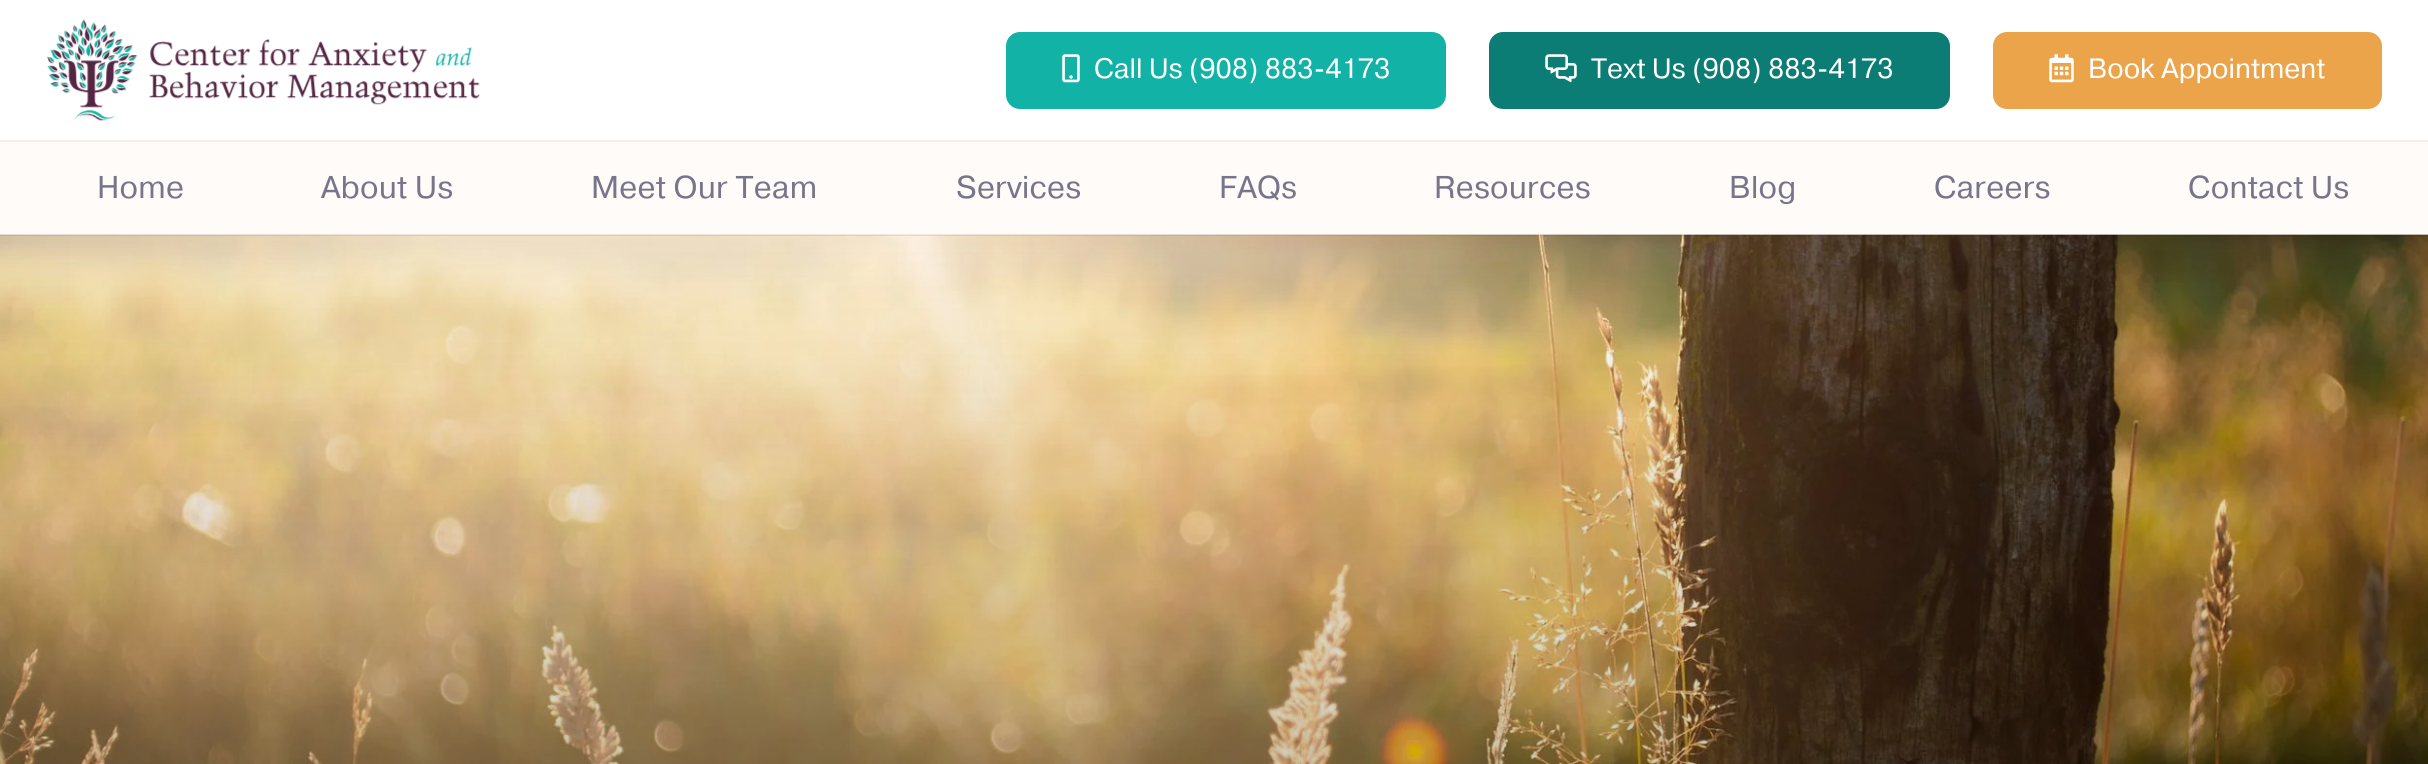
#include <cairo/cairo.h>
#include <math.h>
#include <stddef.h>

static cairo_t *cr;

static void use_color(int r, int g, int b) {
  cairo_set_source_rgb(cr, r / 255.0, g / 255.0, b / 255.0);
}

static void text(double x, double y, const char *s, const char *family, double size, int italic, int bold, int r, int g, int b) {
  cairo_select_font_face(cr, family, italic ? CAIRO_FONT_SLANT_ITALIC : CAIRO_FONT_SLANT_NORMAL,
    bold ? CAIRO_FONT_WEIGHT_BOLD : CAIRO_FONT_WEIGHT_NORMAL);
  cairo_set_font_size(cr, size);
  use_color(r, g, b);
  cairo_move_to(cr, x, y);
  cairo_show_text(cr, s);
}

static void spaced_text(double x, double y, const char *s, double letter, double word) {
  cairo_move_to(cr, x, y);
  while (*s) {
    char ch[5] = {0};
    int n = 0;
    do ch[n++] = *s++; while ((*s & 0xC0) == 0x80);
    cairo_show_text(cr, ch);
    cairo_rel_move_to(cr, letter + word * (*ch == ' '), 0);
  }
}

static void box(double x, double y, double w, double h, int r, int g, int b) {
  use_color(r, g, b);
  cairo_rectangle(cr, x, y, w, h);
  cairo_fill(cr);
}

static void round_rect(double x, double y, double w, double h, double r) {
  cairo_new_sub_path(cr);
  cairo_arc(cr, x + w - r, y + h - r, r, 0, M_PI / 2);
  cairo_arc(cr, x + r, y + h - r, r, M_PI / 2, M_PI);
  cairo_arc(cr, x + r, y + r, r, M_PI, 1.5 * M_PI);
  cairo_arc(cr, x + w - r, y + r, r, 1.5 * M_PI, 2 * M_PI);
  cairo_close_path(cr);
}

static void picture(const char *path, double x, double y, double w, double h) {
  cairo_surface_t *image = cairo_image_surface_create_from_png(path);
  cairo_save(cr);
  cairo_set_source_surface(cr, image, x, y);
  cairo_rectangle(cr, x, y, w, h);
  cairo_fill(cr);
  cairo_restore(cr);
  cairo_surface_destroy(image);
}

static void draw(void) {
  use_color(255, 255, 255);
  cairo_paint(cr);
  box(0, 140, 2428, 2, 235, 235, 235);
  picture("img_01.png", 47, 19, 433, 102);
  use_color(18, 178, 166);
  round_rect(1006, 32, 440, 77, 14);
  cairo_fill(cr);
  picture("img_02.png", 1062, 54, 18, 29);
  use_color(11, 125, 116);
  round_rect(1489, 32, 461, 77, 14);
  cairo_fill(cr);
  picture("img_03.png", 1545, 54, 32, 29);
  use_color(235, 164, 74);
  round_rect(1993, 32, 389, 77, 14);
  cairo_fill(cr);
  picture("img_04.png", 2049, 54, 25, 29);
  picture("img_05.png", 0, 234, 2428, 530);
  cairo_set_source_rgba(cr, 0, 0, 0, 0.08);
  cairo_rectangle(cr, 0, 234, 2428, 2);
  cairo_fill(cr);
  cairo_set_source_rgba(cr, 0.992, 0.965, 0.929, 0.4);
  cairo_rectangle(cr, 0, 140, 2428, 95);
  cairo_fill(cr);
  text(1094, 78, "Call Us (908) 883-4173", "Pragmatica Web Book", 28, 0, 0, 255, 255, 255);
  text(1591, 78, "Text Us (908) 883-4173", "Pragmatica Web Book", 28, 0, 0, 255, 255, 255);
  text(2088, 78, "Book Appointment", "Pragmatica Web Book", 28, 0, 0, 255, 255, 255);
  cairo_set_font_size(cr, 31.5);
  use_color(120, 117, 139);
  spaced_text(97, 198, "Home", 0.25, 0);
  spaced_text(321, 198, "About Us", 0.25, 0);
  spaced_text(591, 198, "Meet Our Team", 0.25, 0);
  spaced_text(956, 198, "Services", 0.25, 0);
  spaced_text(1219, 198, "FAQs", 0.25, 0);
  spaced_text(1434, 198, "Resources", 0.25, 0);
  spaced_text(1729, 198, "Blog", 0.25, 0);
  spaced_text(1934, 198, "Careers", 0.25, 0);
  spaced_text(2188, 198, "Contact Us", 0.25, 0);
}

int main(void) {
  cairo_surface_t *surface = cairo_image_surface_create(CAIRO_FORMAT_RGB24, 2428, 764);
  cr = cairo_create(surface);
  cairo_font_options_t *options = cairo_font_options_create();
  cairo_font_options_set_hint_metrics(options, CAIRO_HINT_METRICS_OFF);
  cairo_font_options_set_hint_style(options, CAIRO_HINT_STYLE_NONE);
  cairo_set_font_options(cr, options);
  cairo_set_miter_limit(cr, 4);
  draw();
  cairo_surface_write_to_png(surface, "out.png");
  cairo_font_options_destroy(options);
  cairo_destroy(cr);
  cairo_surface_destroy(surface);
  return 0;
}
